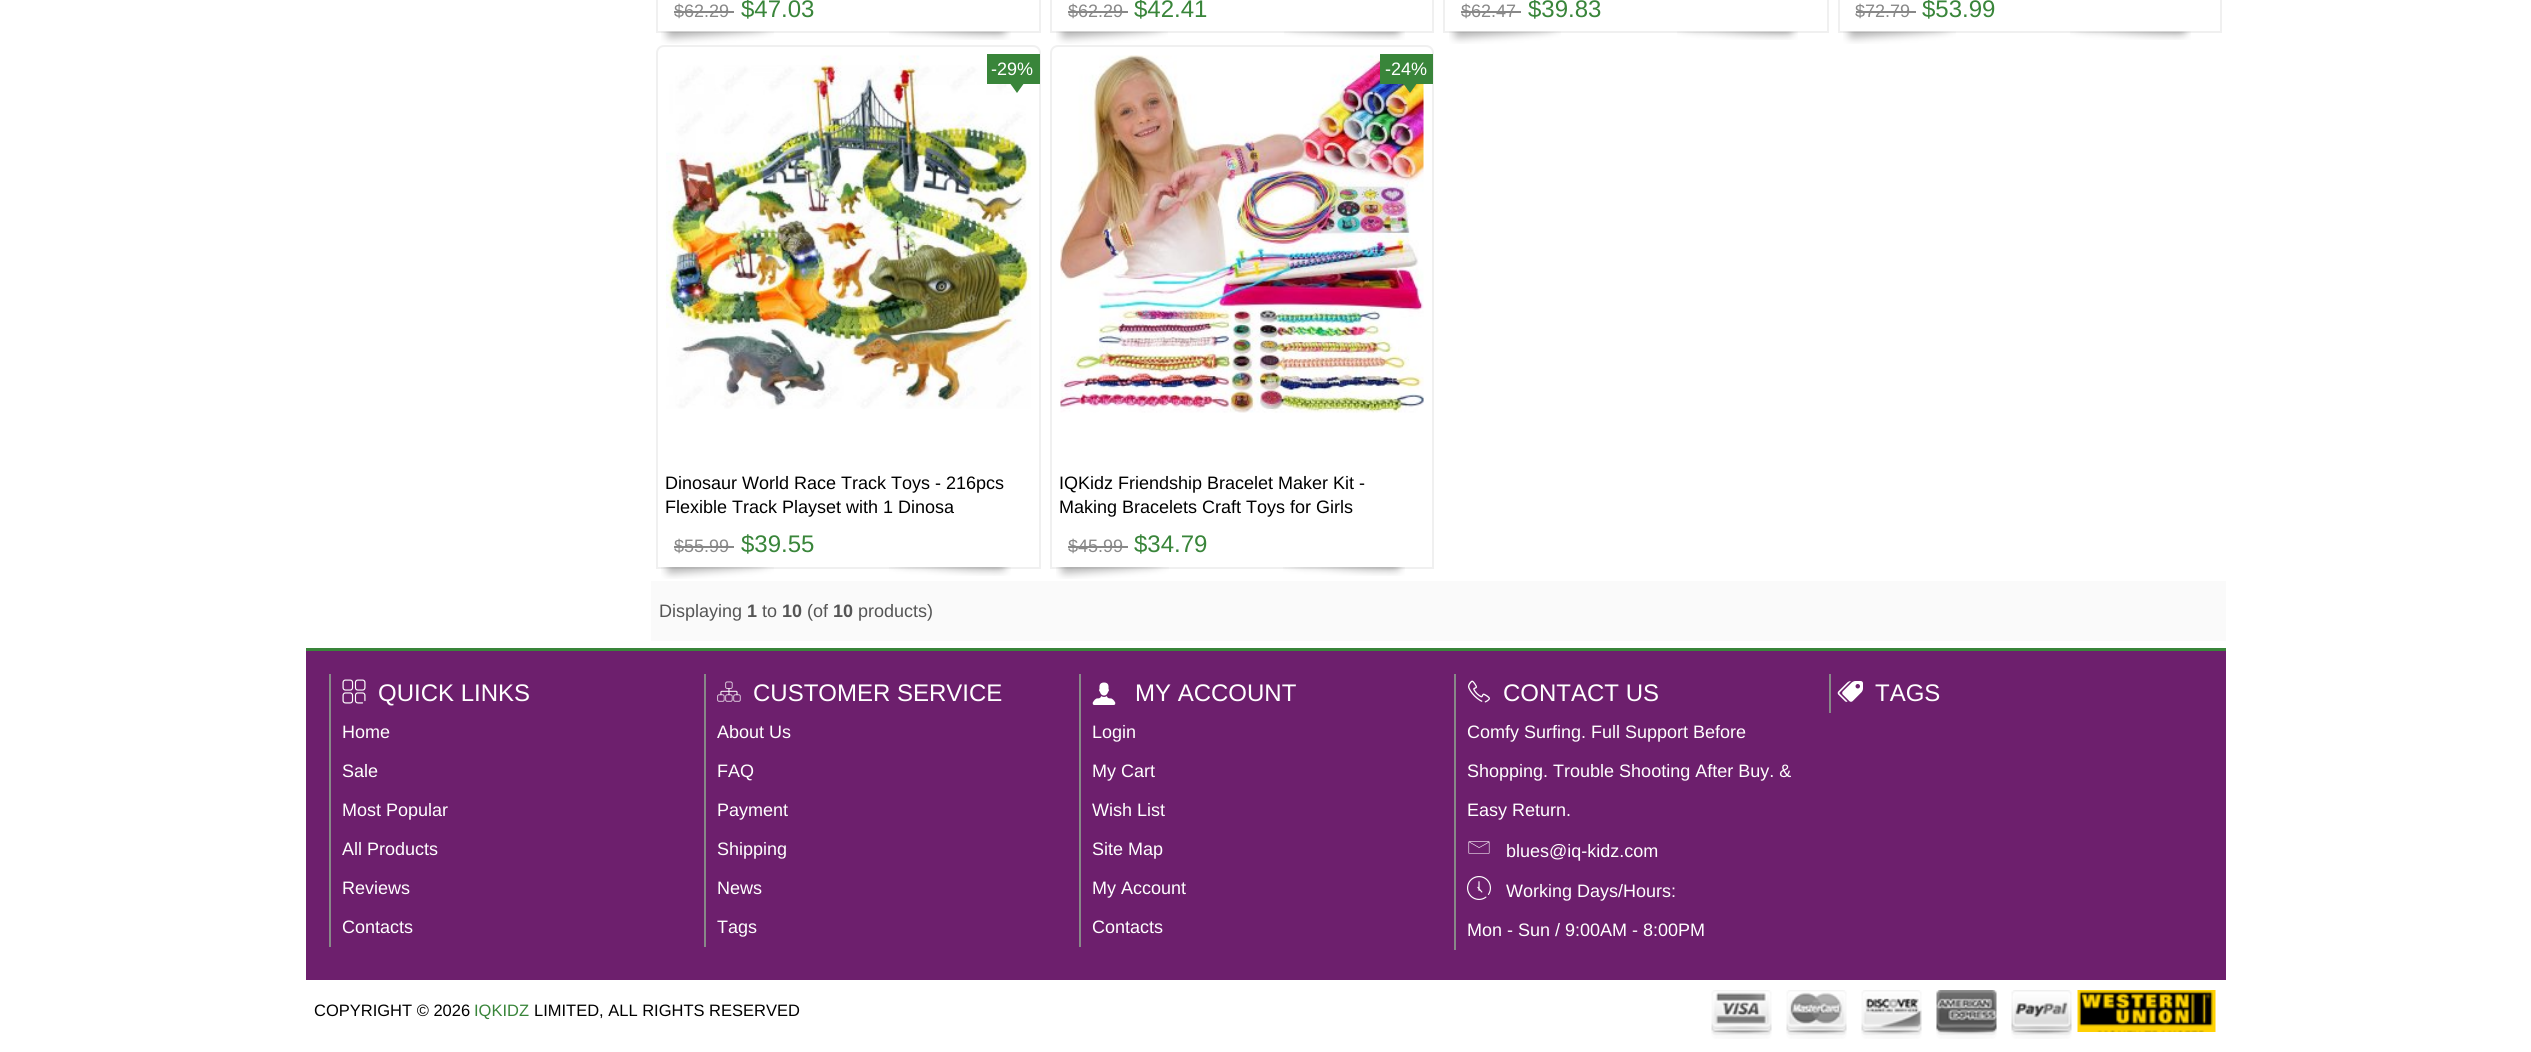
#include <cairo/cairo.h>
#include <math.h>
#include <stddef.h>

static cairo_t *cr;

static void use_color(int r, int g, int b) {
  cairo_set_source_rgb(cr, r / 255.0, g / 255.0, b / 255.0);
}

static void text(double x, double y, const char *s, const char *family, double size, int italic, int bold, int r, int g, int b) {
  cairo_select_font_face(cr, family, italic ? CAIRO_FONT_SLANT_ITALIC : CAIRO_FONT_SLANT_NORMAL,
    bold ? CAIRO_FONT_WEIGHT_BOLD : CAIRO_FONT_WEIGHT_NORMAL);
  cairo_set_font_size(cr, size);
  use_color(r, g, b);
  cairo_move_to(cr, x, y);
  cairo_show_text(cr, s);
}

static void box(double x, double y, double w, double h, int r, int g, int b) {
  use_color(r, g, b);
  cairo_rectangle(cr, x, y, w, h);
  cairo_fill(cr);
}

static void picture(const char *path, double x, double y, double w, double h) {
  cairo_surface_t *image = cairo_image_surface_create_from_png(path);
  cairo_save(cr);
  cairo_set_source_surface(cr, image, x, y);
  cairo_rectangle(cr, x, y, w, h);
  cairo_fill(cr);
  cairo_restore(cr);
  cairo_surface_destroy(image);
}

static void draw(void) {
  use_color(255, 255, 255);
  cairo_paint(cr);
  cairo_rectangle(cr, 657, -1, 383, 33);
  use_color(240, 240, 240);
  cairo_stroke(cr);
  box(674, 11, 60, 2, 136, 136, 136);
  picture("img_01.png", 661, 31, 113, 13);
  picture("img_02.png", 889, 31, 122, 9);
  cairo_rectangle(cr, 1051, -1, 382, 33);
  use_color(240, 240, 240);
  cairo_stroke(cr);
  box(1068, 11, 60, 2, 136, 136, 136);
  picture("img_03.png", 1056, 31, 112, 13);
  picture("img_04.png", 1284, 31, 121, 9);
  cairo_rectangle(cr, 1444, -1, 384, 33);
  use_color(240, 240, 240);
  cairo_stroke(cr);
  box(1461, 11, 60, 2, 136, 136, 136);
  picture("img_05.png", 1449, 31, 112, 13);
  picture("img_06.png", 1677, 31, 121, 9);
  cairo_rectangle(cr, 1839, -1, 382, 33);
  use_color(240, 240, 240);
  cairo_stroke(cr);
  box(1856, 11, 60, 2, 136, 136, 136);
  picture("img_07.png", 1843, 31, 113, 13);
  picture("img_06.png", 2070, 31, 121, 9);
  cairo_new_path(cr);
  cairo_move_to(cr, 664, 46);
  cairo_line_to(cr, 1033, 46);
  cairo_curve_to(cr, 1037, 46, 1040, 49, 1040, 53);
  cairo_line_to(cr, 1040, 568);
  cairo_line_to(cr, 657, 568);
  cairo_line_to(cr, 657, 53);
  cairo_curve_to(cr, 657, 49, 660, 46, 664, 46);
  cairo_close_path(cr);
  use_color(240, 240, 240);
  cairo_stroke(cr);
  picture("img_08.png", 666, 55, 365, 354);
  box(987, 54, 53, 30, 57, 133, 58);
  cairo_new_path(cr);
  cairo_move_to(cr, 1017, 93);
  cairo_line_to(cr, 1008, 80.5);
  cairo_line_to(cr, 1026, 80.5);
  cairo_close_path(cr);
  cairo_fill(cr);
  box(674, 546, 60, 2, 136, 136, 136);
  picture("img_09.png", 661, 567, 113, 12);
  picture("img_10.png", 889, 567, 122, 9);
  cairo_new_path(cr);
  cairo_move_to(cr, 1058, 46);
  cairo_line_to(cr, 1426, 46);
  cairo_curve_to(cr, 1430, 46, 1433, 49, 1433, 53);
  cairo_line_to(cr, 1433, 568);
  cairo_line_to(cr, 1051, 568);
  cairo_line_to(cr, 1051, 53);
  cairo_curve_to(cr, 1051, 49, 1054, 46, 1058, 46);
  cairo_close_path(cr);
  use_color(240, 240, 240);
  cairo_stroke(cr);
  picture("img_11.png", 1060, 55, 364, 358);
  box(1380, 54, 53, 30, 57, 133, 58);
  cairo_new_path(cr);
  cairo_move_to(cr, 1410, 93);
  cairo_line_to(cr, 1401, 80.5);
  cairo_line_to(cr, 1419, 80.5);
  cairo_close_path(cr);
  cairo_fill(cr);
  box(1068, 546, 60, 2, 136, 136, 136);
  picture("img_12.png", 1056, 567, 113, 12);
  picture("img_13.png", 1283, 567, 122, 9);
  box(651, 581, 1575, 60, 250, 250, 250);
  box(306, 651, 1920, 329, 109, 31, 109);
  box(306, 648, 1920, 3, 57, 133, 58);
  box(329, 674, 2, 273, 136, 136, 136);
  picture("img_14.png", 342, 679, 24, 25);
  box(704, 674, 2, 273, 136, 136, 136);
  picture("img_15.png", 717, 681, 24, 21);
  box(1079, 674, 2, 273, 136, 136, 136);
  picture("img_16.png", 1092, 682, 24, 23);
  box(1454, 674, 2, 276, 136, 136, 136);
  picture("img_17.png", 1468, 680, 22, 23);
  picture("img_18.png", 1468, 841, 22, 13);
  picture("img_19.png", 1467, 876, 24, 24);
  box(1829, 674, 2, 39, 136, 136, 136);
  picture("img_20.png", 1837, 681, 26, 21);
  picture("img_21.png", 1711, 990, 361, 49);
  picture("img_22.png", 2077, 990, 139, 42);
  text(674, 17, "$62.29", "Liberation Sans", 18, 0, 0, 136, 136, 136);
  text(741, 17, "$47.03", "Liberation Sans", 24, 0, 0, 57, 133, 58);
  text(1068, 17, "$62.29", "Liberation Sans", 18, 0, 0, 136, 136, 136);
  text(1134, 17, "$42.41", "Liberation Sans", 24, 0, 0, 57, 133, 58);
  text(1461, 17, "$62.47", "Liberation Sans", 18, 0, 0, 136, 136, 136);
  text(1528, 17, "$39.83", "Liberation Sans", 24, 0, 0, 57, 133, 58);
  text(1855, 17, "$72.79", "Liberation Sans", 18, 0, 0, 136, 136, 136);
  text(1922, 17, "$53.99", "Liberation Sans", 24, 0, 0, 57, 133, 58);
  text(991, 75, "-29%", "Liberation Sans", 18, 0, 0, 255, 255, 255);
  text(674, 552, "$55.99", "Liberation Sans", 18, 0, 0, 136, 136, 136);
  text(741, 552, "$39.55", "Liberation Sans", 24, 0, 0, 57, 133, 58);
  text(665, 489, "Dinosaur World Race Track Toys - 216pcs", "Liberation Sans", 18, 0, 0, 0, 0, 0);
  text(665, 513, "Flexible Track Playset with 1 Dinosa", "Liberation Sans", 18, 0, 0, 0, 0, 0);
  text(1385, 75, "-24%", "Liberation Sans", 18, 0, 0, 255, 255, 255);
  text(1068, 552, "$45.99", "Liberation Sans", 18, 0, 0, 136, 136, 136);
  text(1134, 552, "$34.79", "Liberation Sans", 24, 0, 0, 57, 133, 58);
  text(1059, 489, "IQKidz Friendship Bracelet Maker Kit -", "Liberation Sans", 18, 0, 0, 0, 0, 0);
  text(1059, 513, "Making Bracelets Craft Toys for Girls", "Liberation Sans", 18, 0, 0, 0, 0, 0);
  text(659, 617, "Displaying", "Liberation Sans", 18, 0, 0, 85, 85, 85);
  text(747, 617, "1", "Liberation Sans", 18, 0, 1, 85, 85, 85);
  text(762, 617, "to", "Liberation Sans", 18, 0, 0, 85, 85, 85);
  text(782, 617, "10", "Liberation Sans", 18, 0, 1, 85, 85, 85);
  text(807, 617, "(of", "Liberation Sans", 18, 0, 0, 85, 85, 85);
  text(833, 617, "10", "Liberation Sans", 18, 0, 1, 85, 85, 85);
  text(858, 617, "products)", "Liberation Sans", 18, 0, 0, 85, 85, 85);
  text(378, 701, "QUICK LINKS", "Liberation Sans", 24, 0, 0, 255, 255, 255);
  text(342, 738, "Home", "Liberation Sans", 18, 0, 0, 255, 255, 255);
  text(342, 777, "Sale", "Liberation Sans", 18, 0, 0, 255, 255, 255);
  text(342, 816, "Most Popular", "Liberation Sans", 18, 0, 0, 255, 255, 255);
  text(342, 855, "All Products", "Liberation Sans", 18, 0, 0, 255, 255, 255);
  text(342, 894, "Reviews", "Liberation Sans", 18, 0, 0, 255, 255, 255);
  text(342, 933, "Contacts", "Liberation Sans", 18, 0, 0, 255, 255, 255);
  text(753, 701, "CUSTOMER SERVICE", "Liberation Sans", 24, 0, 0, 255, 255, 255);
  text(717, 738, "About Us", "Liberation Sans", 18, 0, 0, 255, 255, 255);
  text(717, 777, "FAQ", "Liberation Sans", 18, 0, 0, 255, 255, 255);
  text(717, 816, "Payment", "Liberation Sans", 18, 0, 0, 255, 255, 255);
  text(717, 855, "Shipping", "Liberation Sans", 18, 0, 0, 255, 255, 255);
  text(717, 894, "News", "Liberation Sans", 18, 0, 0, 255, 255, 255);
  text(717, 933, "Tags", "Liberation Sans", 18, 0, 0, 255, 255, 255);
  text(1135, 701, "MY ACCOUNT", "Liberation Sans", 24, 0, 0, 255, 255, 255);
  text(1092, 738, "Login", "Liberation Sans", 18, 0, 0, 255, 255, 255);
  text(1092, 777, "My Cart", "Liberation Sans", 18, 0, 0, 255, 255, 255);
  text(1092, 816, "Wish List", "Liberation Sans", 18, 0, 0, 255, 255, 255);
  text(1092, 855, "Site Map", "Liberation Sans", 18, 0, 0, 255, 255, 255);
  text(1092, 894, "My Account", "Liberation Sans", 18, 0, 0, 255, 255, 255);
  text(1092, 933, "Contacts", "Liberation Sans", 18, 0, 0, 255, 255, 255);
  text(1503, 701, "CONTACT US", "Liberation Sans", 24, 0, 0, 255, 255, 255);
  text(1467, 738, "Comfy Surfing. Full Support Before", "Liberation Sans", 18, 0, 0, 255, 255, 255);
  text(1467, 777, "Shopping. Trouble Shooting After Buy. &", "Liberation Sans", 18, 0, 0, 255, 255, 255);
  text(1467, 816, "Easy Return.", "Liberation Sans", 18, 0, 0, 255, 255, 255);
  text(1506, 857, "blues@iq-kidz.com", "Liberation Sans", 18, 0, 0, 255, 255, 255);
  text(1506, 897, "Working Days/Hours:", "Liberation Sans", 18, 0, 0, 255, 255, 255);
  text(1467, 936, "Mon - Sun / 9:00AM - 8:00PM", "Liberation Sans", 18, 0, 0, 255, 255, 255);
  text(1875, 701, "TAGS", "Liberation Sans", 24, 0, 0, 255, 255, 255);
  text(314, 1016, "COPYRIGHT © 2026", "Liberation Sans", 16.5, 0, 0, 0, 0, 0);
  text(474, 1016, "IQKIDZ", "Liberation Sans", 16.5, 0, 0, 57, 133, 58);
  text(534, 1016, "LIMITED, ALL RIGHTS RESERVED", "Liberation Sans", 16.5, 0, 0, 0, 0, 0);
}

int main(void) {
  cairo_surface_t *surface = cairo_image_surface_create(CAIRO_FORMAT_RGB24, 2531, 1052);
  cr = cairo_create(surface);
  cairo_font_options_t *options = cairo_font_options_create();
  cairo_font_options_set_hint_metrics(options, CAIRO_HINT_METRICS_OFF);
  cairo_font_options_set_hint_style(options, CAIRO_HINT_STYLE_NONE);
  cairo_set_font_options(cr, options);
  cairo_set_miter_limit(cr, 4);
  draw();
  cairo_surface_write_to_png(surface, "out.png");
  cairo_font_options_destroy(options);
  cairo_destroy(cr);
  cairo_surface_destroy(surface);
  return 0;
}
